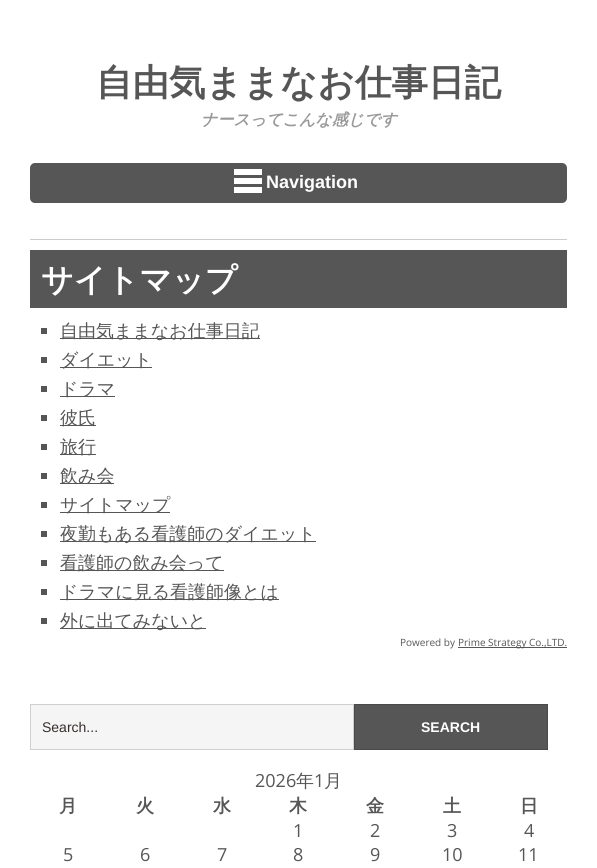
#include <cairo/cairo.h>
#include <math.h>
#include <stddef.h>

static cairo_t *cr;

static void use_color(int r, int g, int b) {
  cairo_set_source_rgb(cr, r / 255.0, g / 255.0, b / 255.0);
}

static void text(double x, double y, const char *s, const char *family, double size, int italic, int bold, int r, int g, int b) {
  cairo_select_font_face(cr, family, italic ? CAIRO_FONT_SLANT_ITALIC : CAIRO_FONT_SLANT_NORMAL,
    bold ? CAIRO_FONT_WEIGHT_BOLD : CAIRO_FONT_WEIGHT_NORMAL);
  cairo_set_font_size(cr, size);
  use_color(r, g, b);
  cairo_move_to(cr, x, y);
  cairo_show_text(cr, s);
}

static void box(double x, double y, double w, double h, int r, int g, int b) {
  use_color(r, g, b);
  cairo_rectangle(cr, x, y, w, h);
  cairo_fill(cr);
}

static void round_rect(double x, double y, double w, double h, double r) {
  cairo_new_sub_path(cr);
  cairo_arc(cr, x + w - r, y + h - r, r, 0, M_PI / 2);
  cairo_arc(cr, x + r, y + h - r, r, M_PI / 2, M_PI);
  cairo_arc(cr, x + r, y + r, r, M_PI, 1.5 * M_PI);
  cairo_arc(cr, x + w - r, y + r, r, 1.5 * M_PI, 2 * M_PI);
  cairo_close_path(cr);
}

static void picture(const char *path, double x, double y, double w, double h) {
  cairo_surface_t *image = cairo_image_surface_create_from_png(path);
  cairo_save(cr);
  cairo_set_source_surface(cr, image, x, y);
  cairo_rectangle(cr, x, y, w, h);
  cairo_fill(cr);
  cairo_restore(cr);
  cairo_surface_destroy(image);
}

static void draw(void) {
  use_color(255, 255, 255);
  cairo_paint(cr);
  use_color(86, 86, 86);
  round_rect(30, 163, 537, 40, 5);
  cairo_fill(cr);
  picture("img_01.png", 234, 169, 28, 24);
  box(30, 239, 537, 1, 204, 204, 204);
  box(30, 250, 537, 58, 86, 86, 86);
  box(41, 328, 6, 6, 85, 85, 85);
  box(60, 338, 200, 1, 86, 86, 86);
  box(41, 357, 6, 6, 85, 85, 85);
  box(60, 367, 92, 1, 86, 86, 86);
  box(41, 386, 6, 6, 85, 85, 85);
  box(60, 396, 55, 1, 86, 86, 86);
  box(41, 415, 6, 6, 85, 85, 85);
  box(60, 425, 36, 1, 86, 86, 86);
  box(41, 444, 6, 6, 85, 85, 85);
  box(60, 454, 36, 1, 86, 86, 86);
  box(41, 473, 6, 6, 85, 85, 85);
  box(60, 483, 54, 1, 86, 86, 86);
  box(41, 502, 6, 6, 85, 85, 85);
  box(60, 512, 110, 1, 86, 86, 86);
  box(41, 531, 6, 6, 85, 85, 85);
  box(60, 541, 256, 1, 86, 86, 86);
  box(41, 560, 6, 6, 85, 85, 85);
  box(60, 570, 164, 1, 86, 86, 86);
  box(41, 589, 6, 6, 85, 85, 85);
  box(60, 599, 219, 1, 86, 86, 86);
  box(41, 618, 6, 6, 85, 85, 85);
  box(60, 628, 146, 1, 86, 86, 86);
  box(458, 647, 109, 1, 86, 86, 86);
  use_color(245, 245, 245);
  cairo_rectangle(cr, 30.5, 704.5, 323, 45);
  cairo_fill_preserve(cr);
  use_color(208, 208, 208);
  cairo_set_line_width(cr, 1);
  cairo_stroke(cr);
  use_color(86, 86, 86);
  cairo_rectangle(cr, 354.5, 704.5, 193, 45);
  cairo_fill_preserve(cr);
  use_color(73, 73, 73);
  cairo_stroke(cr);
  text(96, 95, "自由気ままなお仕事日記", "WenQuanYi Zen Hei", 36.5, 0, 1, 86, 86, 86);
  text(201, 125, "ナースってこんな感じです", "WenQuanYi Zen Hei", 16, 1, 1, 153, 153, 153);
  text(266, 188, "Navigation", "Liberation Sans", 18, 0, 1, 255, 255, 255);
  text(41, 291, "サイトマップ", "WenQuanYi Zen Hei", 32, 0, 1, 255, 255, 255);
  text(60, 337, "自由気ままなお仕事日記", "WenQuanYi Zen Hei Medium", 18, 0, 0, 86, 86, 86);
  text(60, 366, "ダイエット", "WenQuanYi Zen Hei Medium", 18, 0, 0, 86, 86, 86);
  text(60, 395, "ドラマ", "WenQuanYi Zen Hei Medium", 18, 0, 0, 86, 86, 86);
  text(60, 424, "彼氏", "WenQuanYi Zen Hei Medium", 18, 0, 0, 86, 86, 86);
  text(60, 453, "旅行", "WenQuanYi Zen Hei Medium", 18, 0, 0, 86, 86, 86);
  text(60, 482, "飲み会", "WenQuanYi Zen Hei Medium", 18, 0, 0, 86, 86, 86);
  text(60, 511, "サイトマップ", "WenQuanYi Zen Hei Medium", 18, 0, 0, 86, 86, 86);
  text(60, 540, "夜勤もある看護師のダイエット", "WenQuanYi Zen Hei Medium", 18, 0, 0, 86, 86, 86);
  text(60, 569, "看護師の飲み会って", "WenQuanYi Zen Hei Medium", 18, 0, 0, 86, 86, 86);
  text(60, 598, "ドラマに見る看護師像とは", "WenQuanYi Zen Hei Medium", 18, 0, 0, 86, 86, 86);
  text(60, 627, "外に出てみないと", "WenQuanYi Zen Hei Medium", 18, 0, 0, 86, 86, 86);
  text(400, 646, "Powered by", "Open Sans", 10, 0, 0, 86, 86, 86);
  text(458, 646, "Prime Strategy Co.,LTD.", "Open Sans", 10, 0, 0, 86, 86, 86);
  text(42, 732, "Search...", "Liberation Sans", 14, 0, 0, 54, 47, 45);
  text(421, 732, "SEARCH", "Liberation Sans", 14, 0, 1, 255, 255, 255);
  text(255, 787, "2026", "Open Sans", 18, 0, 0, 86, 86, 86);
  text(296, 787, "年", "WenQuanYi Zen Hei Medium", 18, 0, 0, 86, 86, 86);
  text(314, 787, "1", "Open Sans", 18, 0, 0, 86, 86, 86);
  text(324, 787, "月", "WenQuanYi Zen Hei Medium", 18, 0, 0, 86, 86, 86);
  text(59, 812, "月", "WenQuanYi Zen Hei", 18, 0, 1, 86, 86, 86);
  text(136, 812, "火", "WenQuanYi Zen Hei", 18, 0, 1, 86, 86, 86);
  text(213, 812, "水", "WenQuanYi Zen Hei", 18, 0, 1, 86, 86, 86);
  text(289, 812, "木", "WenQuanYi Zen Hei", 18, 0, 1, 86, 86, 86);
  text(366, 812, "金", "WenQuanYi Zen Hei", 18, 0, 1, 86, 86, 86);
  text(443, 812, "土", "WenQuanYi Zen Hei", 18, 0, 1, 86, 86, 86);
  text(520, 812, "日", "WenQuanYi Zen Hei", 18, 0, 1, 86, 86, 86);
  text(293, 837, "1", "Open Sans", 18, 0, 0, 86, 86, 86);
  text(370, 837, "2", "Open Sans", 18, 0, 0, 86, 86, 86);
  text(447, 837, "3", "Open Sans", 18, 0, 0, 86, 86, 86);
  text(524, 837, "4", "Open Sans", 18, 0, 0, 86, 86, 86);
  text(63, 861, "5", "Open Sans", 18, 0, 0, 86, 86, 86);
  text(140, 861, "6", "Open Sans", 18, 0, 0, 86, 86, 86);
  text(217, 861, "7", "Open Sans", 18, 0, 0, 86, 86, 86);
  text(293, 861, "8", "Open Sans", 18, 0, 0, 86, 86, 86);
  text(370, 861, "9", "Open Sans", 18, 0, 0, 86, 86, 86);
  text(442, 861, "10", "Open Sans", 18, 0, 0, 86, 86, 86);
  text(518, 861, "11", "Open Sans", 18, 0, 0, 86, 86, 86);
}

int main(void) {
  cairo_surface_t *surface = cairo_image_surface_create(CAIRO_FORMAT_RGB24, 597, 868);
  cr = cairo_create(surface);
  cairo_font_options_t *options = cairo_font_options_create();
  cairo_font_options_set_hint_metrics(options, CAIRO_HINT_METRICS_OFF);
  cairo_font_options_set_hint_style(options, CAIRO_HINT_STYLE_NONE);
  cairo_set_font_options(cr, options);
  cairo_set_miter_limit(cr, 4);
  draw();
  cairo_surface_write_to_png(surface, "out.png");
  cairo_font_options_destroy(options);
  cairo_destroy(cr);
  cairo_surface_destroy(surface);
  return 0;
}
